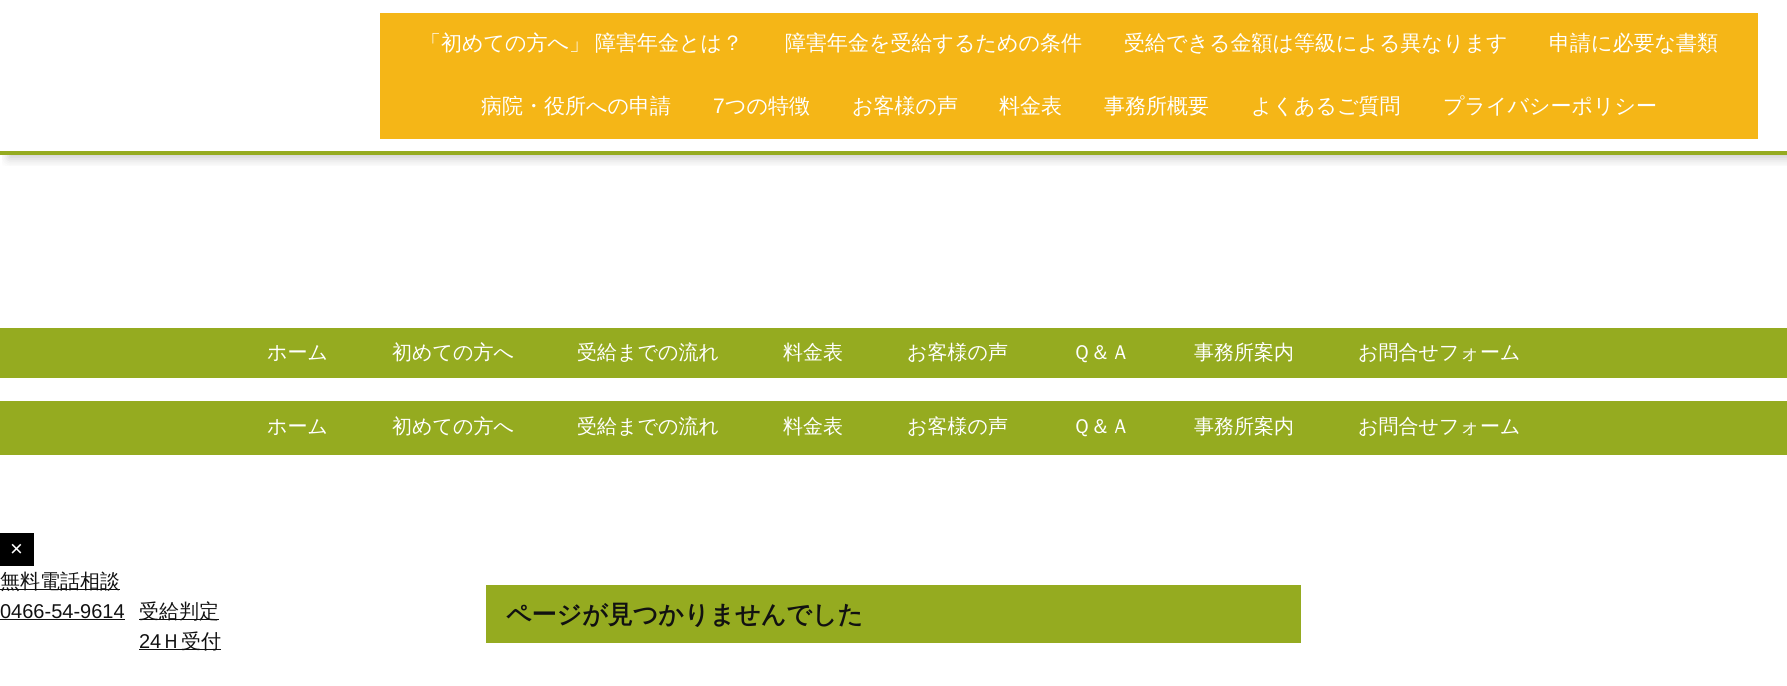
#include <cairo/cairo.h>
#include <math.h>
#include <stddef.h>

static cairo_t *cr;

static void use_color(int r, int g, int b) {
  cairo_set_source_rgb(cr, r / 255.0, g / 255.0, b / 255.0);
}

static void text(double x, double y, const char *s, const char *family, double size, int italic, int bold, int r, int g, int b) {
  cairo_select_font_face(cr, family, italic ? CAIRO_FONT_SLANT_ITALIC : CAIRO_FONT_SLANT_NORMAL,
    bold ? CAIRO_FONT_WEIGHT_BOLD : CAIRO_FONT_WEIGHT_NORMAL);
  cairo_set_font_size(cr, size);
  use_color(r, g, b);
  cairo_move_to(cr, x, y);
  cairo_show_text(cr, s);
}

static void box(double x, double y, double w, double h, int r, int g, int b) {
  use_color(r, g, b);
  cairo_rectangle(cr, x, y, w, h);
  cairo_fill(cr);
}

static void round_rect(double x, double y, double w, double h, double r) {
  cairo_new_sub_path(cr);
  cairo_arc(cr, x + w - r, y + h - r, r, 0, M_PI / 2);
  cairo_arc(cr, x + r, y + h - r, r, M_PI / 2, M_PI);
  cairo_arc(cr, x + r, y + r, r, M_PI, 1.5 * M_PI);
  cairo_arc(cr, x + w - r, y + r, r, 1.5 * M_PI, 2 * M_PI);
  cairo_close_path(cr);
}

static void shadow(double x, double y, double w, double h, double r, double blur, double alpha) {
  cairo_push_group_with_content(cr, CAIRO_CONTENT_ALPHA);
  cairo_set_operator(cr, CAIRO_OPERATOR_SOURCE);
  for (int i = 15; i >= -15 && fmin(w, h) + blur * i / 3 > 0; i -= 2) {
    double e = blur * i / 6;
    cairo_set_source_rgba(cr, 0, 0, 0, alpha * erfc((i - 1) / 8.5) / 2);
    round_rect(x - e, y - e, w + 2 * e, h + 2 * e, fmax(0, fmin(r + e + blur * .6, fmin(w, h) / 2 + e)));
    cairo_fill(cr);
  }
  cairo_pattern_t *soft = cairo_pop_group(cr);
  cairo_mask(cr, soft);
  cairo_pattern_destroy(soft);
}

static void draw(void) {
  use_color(255, 255, 255);
  cairo_paint(cr);
  cairo_save(cr);
  cairo_rectangle(cr, 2, 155, 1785, 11);
  cairo_clip(cr);
  use_color(0, 0, 0);
  shadow(8, 8, 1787, 151, 0, 5.5, 0.2);
  cairo_restore(cr);
  box(380, 13, 1378, 126, 245, 182, 23);
  box(0, 151, 1787, 4, 149, 171, 32);
  box(0, 401, 1787, 54, 149, 171, 32);
  box(0, 328, 1787, 50, 149, 171, 32);
  box(0, 533, 34, 33, 0, 0, 0);
  box(0, 589, 120, 1, 17, 17, 17);
  box(0, 619, 125, 1, 17, 17, 17);
  box(139, 619, 80, 1, 17, 17, 17);
  box(139, 649, 82, 1, 17, 17, 17);
  box(486, 585, 815, 58, 149, 171, 32);
  text(420, 50, "「初めての方へ」", "WenQuanYi Zen Hei Medium", 21, 0, 0, 255, 255, 255);
  text(595, 50, "障害年金とは？", "WenQuanYi Zen Hei Medium", 21, 0, 0, 255, 255, 255);
  text(785, 50, "障害年金を受給するための条件", "WenQuanYi Zen Hei Medium", 21, 0, 0, 255, 255, 255);
  text(1124, 50, "受給できる金額は等級による異なります", "WenQuanYi Zen Hei Medium", 21, 0, 0, 255, 255, 255);
  text(1549, 50, "申請に必要な書類", "WenQuanYi Zen Hei Medium", 21, 0, 0, 255, 255, 255);
  text(481, 113, "病院・役所への申請", "WenQuanYi Zen Hei Medium", 21, 0, 0, 255, 255, 255);
  text(713, 113, "7", "Liberation Sans", 21, 0, 0, 255, 255, 255);
  text(725, 113, "つの特徴", "WenQuanYi Zen Hei Medium", 21, 0, 0, 255, 255, 255);
  text(852, 113, "お客様の声", "WenQuanYi Zen Hei Medium", 21, 0, 0, 255, 255, 255);
  text(999, 113, "料金表", "WenQuanYi Zen Hei Medium", 21, 0, 0, 255, 255, 255);
  text(1104, 113, "事務所概要", "WenQuanYi Zen Hei Medium", 21, 0, 0, 255, 255, 255);
  text(1251, 113, "よくあるご質問", "WenQuanYi Zen Hei Medium", 21, 0, 0, 255, 255, 255);
  text(1443, 113, "プライバシーポリシー", "WenQuanYi Zen Hei Medium", 21, 0, 0, 255, 255, 255);
  text(267, 359, "ホーム", "WenQuanYi Zen Hei Medium", 20, 0, 0, 255, 255, 255);
  text(392, 359, "初めての方へ", "WenQuanYi Zen Hei Medium", 20, 0, 0, 255, 255, 255);
  text(577, 359, "受給までの流れ", "WenQuanYi Zen Hei Medium", 20, 0, 0, 255, 255, 255);
  text(783, 359, "料金表", "WenQuanYi Zen Hei Medium", 20, 0, 0, 255, 255, 255);
  text(907, 359, "お客様の声", "WenQuanYi Zen Hei Medium", 20, 0, 0, 255, 255, 255);
  text(1072, 359, "Ｑ＆Ａ", "WenQuanYi Zen Hei Medium", 20, 0, 0, 255, 255, 255);
  text(1194, 359, "事務所案内", "WenQuanYi Zen Hei Medium", 20, 0, 0, 255, 255, 255);
  text(1358, 359, "お問合せフォーム", "WenQuanYi Zen Hei Medium", 20, 0, 0, 255, 255, 255);
  text(267, 433, "ホーム", "WenQuanYi Zen Hei Medium", 20, 0, 0, 255, 255, 255);
  text(392, 433, "初めての方へ", "WenQuanYi Zen Hei Medium", 20, 0, 0, 255, 255, 255);
  text(577, 433, "受給までの流れ", "WenQuanYi Zen Hei Medium", 20, 0, 0, 255, 255, 255);
  text(783, 433, "料金表", "WenQuanYi Zen Hei Medium", 20, 0, 0, 255, 255, 255);
  text(907, 433, "お客様の声", "WenQuanYi Zen Hei Medium", 20, 0, 0, 255, 255, 255);
  text(1072, 433, "Ｑ＆Ａ", "WenQuanYi Zen Hei Medium", 20, 0, 0, 255, 255, 255);
  text(1194, 433, "事務所案内", "WenQuanYi Zen Hei Medium", 20, 0, 0, 255, 255, 255);
  text(1358, 433, "お問合せフォーム", "WenQuanYi Zen Hei Medium", 20, 0, 0, 255, 255, 255);
  text(10, 556, "×", "Liberation Sans", 22, 0, 0, 255, 255, 255);
  text(0, 588, "無料電話相談", "WenQuanYi Zen Hei Medium", 20, 0, 0, 17, 17, 17);
  text(0, 618, "0466-54-9614", "Liberation Sans", 20, 0, 0, 17, 17, 17);
  text(139, 618, "受給判定", "WenQuanYi Zen Hei Medium", 20, 0, 0, 17, 17, 17);
  text(139, 648, "24", "Liberation Sans", 20, 0, 0, 17, 17, 17);
  text(161, 648, "Ｈ受付", "WenQuanYi Zen Hei Medium", 20, 0, 0, 17, 17, 17);
  text(506, 623, "ページが見つかりませんでした", "WenQuanYi Zen Hei", 25, 0, 1, 17, 17, 17);
}

int main(void) {
  cairo_surface_t *surface = cairo_image_surface_create(CAIRO_FORMAT_RGB24, 1787, 686);
  cr = cairo_create(surface);
  cairo_font_options_t *options = cairo_font_options_create();
  cairo_font_options_set_hint_metrics(options, CAIRO_HINT_METRICS_OFF);
  cairo_font_options_set_hint_style(options, CAIRO_HINT_STYLE_NONE);
  cairo_set_font_options(cr, options);
  cairo_set_miter_limit(cr, 4);
  draw();
  cairo_surface_write_to_png(surface, "out.png");
  cairo_font_options_destroy(options);
  cairo_destroy(cr);
  cairo_surface_destroy(surface);
  return 0;
}
